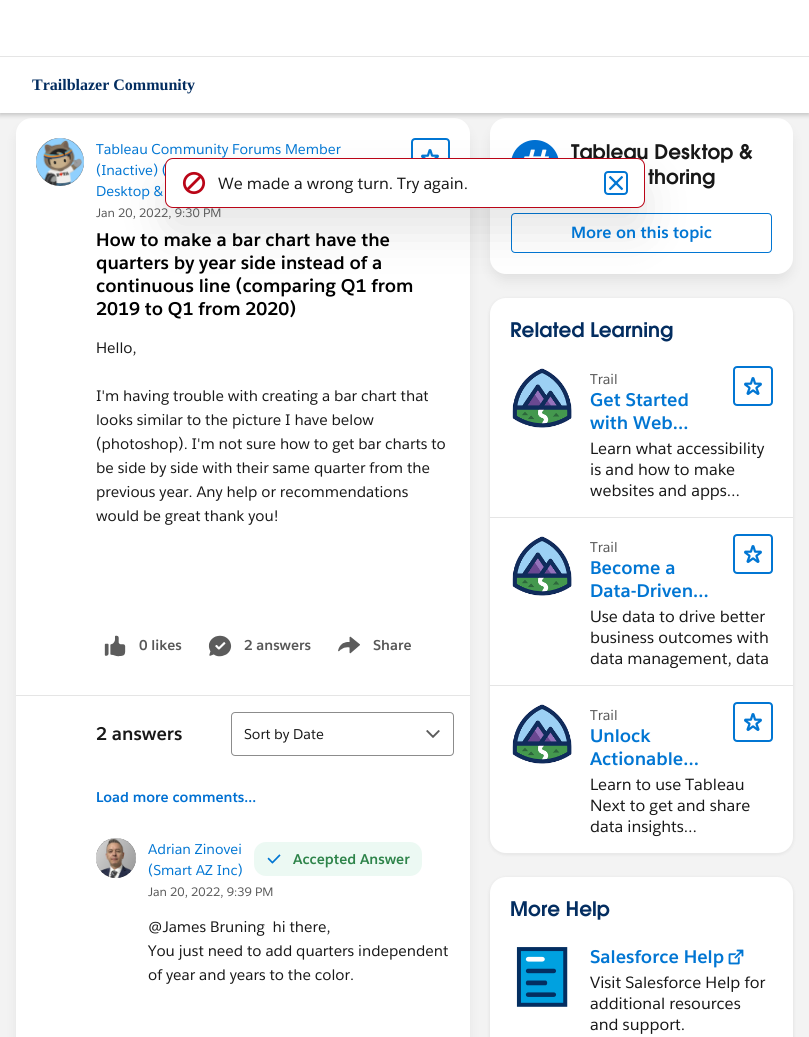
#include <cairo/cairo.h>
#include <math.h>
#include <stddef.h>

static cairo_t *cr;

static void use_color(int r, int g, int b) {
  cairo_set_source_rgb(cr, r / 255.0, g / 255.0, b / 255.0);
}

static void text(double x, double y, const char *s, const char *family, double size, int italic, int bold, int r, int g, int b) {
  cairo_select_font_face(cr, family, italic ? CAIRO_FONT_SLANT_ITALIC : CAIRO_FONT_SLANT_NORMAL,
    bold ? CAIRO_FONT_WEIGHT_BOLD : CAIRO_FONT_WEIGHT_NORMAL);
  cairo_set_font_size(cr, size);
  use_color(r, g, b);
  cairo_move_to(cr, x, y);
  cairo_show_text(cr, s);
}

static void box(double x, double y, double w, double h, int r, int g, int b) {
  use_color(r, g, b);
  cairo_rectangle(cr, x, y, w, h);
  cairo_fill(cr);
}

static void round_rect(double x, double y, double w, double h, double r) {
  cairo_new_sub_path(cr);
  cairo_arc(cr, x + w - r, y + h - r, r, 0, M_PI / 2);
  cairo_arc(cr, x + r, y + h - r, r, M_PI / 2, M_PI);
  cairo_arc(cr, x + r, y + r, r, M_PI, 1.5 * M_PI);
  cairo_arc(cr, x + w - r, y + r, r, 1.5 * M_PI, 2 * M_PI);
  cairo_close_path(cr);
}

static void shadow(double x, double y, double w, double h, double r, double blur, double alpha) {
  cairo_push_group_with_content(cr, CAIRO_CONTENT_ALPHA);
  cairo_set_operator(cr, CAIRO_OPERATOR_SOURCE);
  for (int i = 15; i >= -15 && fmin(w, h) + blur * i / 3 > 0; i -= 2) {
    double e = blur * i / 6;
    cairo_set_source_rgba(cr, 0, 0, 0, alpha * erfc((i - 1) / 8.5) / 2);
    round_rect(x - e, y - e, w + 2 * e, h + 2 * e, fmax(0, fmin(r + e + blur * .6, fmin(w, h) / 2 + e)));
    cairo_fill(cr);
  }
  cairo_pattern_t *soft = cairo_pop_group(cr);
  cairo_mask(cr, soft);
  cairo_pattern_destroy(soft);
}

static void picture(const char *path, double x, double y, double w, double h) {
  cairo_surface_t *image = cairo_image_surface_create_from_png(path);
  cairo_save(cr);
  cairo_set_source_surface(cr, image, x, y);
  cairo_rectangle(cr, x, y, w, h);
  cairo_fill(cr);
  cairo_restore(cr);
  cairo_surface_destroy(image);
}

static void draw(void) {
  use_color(243, 243, 243);
  cairo_paint(cr);
  use_color(24, 24, 24);
  shadow(18, 128, 450, 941, 14, 6, 0.09);
  use_color(255, 255, 255);
  round_rect(16, 118, 454, 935, 16);
  cairo_fill(cr);
  use_color(24, 24, 24);
  shadow(489, 298, 305, 557, 17, 1.5, 0.06);
  use_color(255, 255, 255);
  round_rect(490, 298, 303, 555, 16);
  cairo_fill(cr);
  use_color(24, 24, 24);
  shadow(492, 128, 299, 152, 14, 6, 0.09);
  use_color(255, 255, 255);
  round_rect(490, 118, 303, 156, 16);
  cairo_fill(cr);
  use_color(24, 24, 24);
  shadow(-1, 57, 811, 59, 0, 2, 0.16);
  shadow(0, 56, 809, 57, 0, 1, 0.08);
  box(0, 0, 809, 56, 255, 255, 255);
  round_rect(412, 139, 37, 38, 3);
  use_color(1, 118, 211);
  cairo_stroke(cr);
  picture("img_02.png", 421, 149, 18, 9);
  use_color(0, 112, 210);
  cairo_arc(cr, 535, 164, 24, 0, 2 * M_PI);
  cairo_fill(cr);
  picture("img_09.png", 524, 149, 25, 9);
  round_rect(511.5, 213.5, 260, 39, 3.5);
  use_color(1, 118, 211);
  cairo_set_line_width(cr, 1);
  cairo_stroke(cr);
  use_color(24, 24, 24);
  shadow(167, 184, 476, 46, 6, 24, 0.12);
  box(0, 57, 809, 56, 255, 255, 255);
  box(0, 56, 809, 1, 229, 229, 229);
  picture("img_01.png", 36, 138, 48, 48);
  picture("img_03.png", 104, 635, 22, 22);
  picture("img_04.png", 208, 635, 24, 22);
  picture("img_05.png", 338, 636, 22, 18);
  box(16, 695, 454, 1, 229, 229, 229);
  round_rect(231.5, 712.5, 222, 43, 3.5);
  use_color(140, 140, 140);
  cairo_stroke(cr);
  picture("img_06.png", 426, 730, 14, 8);
  use_color(229, 229, 229);
  cairo_arc(cr, 116, 858, 20, 0, 2 * M_PI);
  cairo_fill(cr);
  picture("img_07.png", 96, 838, 40, 40);
  use_color(236, 249, 243);
  round_rect(254, 842, 168, 34, 12);
  cairo_fill(cr);
  picture("img_08.png", 267, 854, 14, 10);
  picture("img_10.png", 512, 368, 60, 60);
  round_rect(734, 367, 38, 38, 3);
  use_color(1, 118, 211);
  cairo_set_line_width(cr, 2);
  cairo_stroke(cr);
  picture("img_11.png", 744, 377, 18, 18);
  box(490, 517, 303, 1, 229, 229, 229);
  picture("img_12.png", 512, 536, 60, 60);
  round_rect(734, 535, 38, 38, 3);
  use_color(1, 118, 211);
  cairo_stroke(cr);
  picture("img_11.png", 744, 545, 18, 18);
  box(490, 685, 303, 1, 229, 229, 229);
  picture("img_13.png", 512, 704, 60, 60);
  round_rect(734, 703, 38, 38, 3);
  use_color(1, 118, 211);
  cairo_stroke(cr);
  picture("img_11.png", 744, 713, 18, 18);
  use_color(24, 24, 24);
  shadow(489, 877, 305, 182, 17, 1.5, 0.06);
  use_color(255, 255, 255);
  round_rect(490, 877, 303, 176, 16);
  cairo_fill(cr);
  picture("img_14.png", 516, 947, 52, 60);
  picture("img_15.png", 728, 949, 16, 16);
  text(32, 90, "Trailblazer Community", "Liberation Serif", 16, 0, 1, 3, 45, 96);
  text(96, 154, "Tableau Community Forums Member", "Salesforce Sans", 14, 0, 0, 1, 118, 211);
  text(96, 175, "(Inactive) (", "Salesforce Sans", 14, 0, 0, 1, 118, 211);
  text(96, 196, "Desktop &", "Salesforce Sans", 14, 0, 0, 1, 118, 211);
  text(96, 217, "Jan 20, 2022, 9:30 PM", "Salesforce Sans", 12, 0, 0, 88, 88, 88);
  text(96, 246, "How to make a bar chart have the", "Salesforce Sans", 18, 0, 1, 0, 0, 0);
  text(96, 269, "quarters by year side instead of a", "Salesforce Sans", 18, 0, 1, 0, 0, 0);
  text(96, 292, "continuous line (comparing Q1 from", "Salesforce Sans", 18, 0, 1, 0, 0, 0);
  text(96, 315, "2019 to Q1 from 2020)", "Salesforce Sans", 18, 0, 1, 0, 0, 0);
  text(96, 353, "Hello,", "Salesforce Sans", 15, 0, 0, 24, 24, 24);
  text(96, 401, "I'm having trouble with creating a bar chart that", "Salesforce Sans", 15, 0, 0, 24, 24, 24);
  text(96, 425, "looks similar to the picture I have below", "Salesforce Sans", 15, 0, 0, 24, 24, 24);
  text(96, 449, "(photoshop). I'm not sure how to get bar charts to", "Salesforce Sans", 15, 0, 0, 24, 24, 24);
  text(96, 473, "be side by side with their same quarter from the", "Salesforce Sans", 15, 0, 0, 24, 24, 24);
  text(96, 497, "previous year. Any help or recommendations", "Salesforce Sans", 15, 0, 0, 24, 24, 24);
  text(96, 521, "would be great thank you!", "Salesforce Sans", 15, 0, 0, 24, 24, 24);
  text(139, 650, "0 likes", "Salesforce Sans", 14, 0, 1, 88, 88, 88);
  text(244, 650, "2 answers", "Salesforce Sans", 14, 0, 1, 88, 88, 88);
  text(373, 650, "Share", "Salesforce Sans", 14, 0, 1, 88, 88, 88);
  text(96, 740, "2 answers", "Salesforce Sans", 18, 0, 1, 24, 24, 24);
  text(244, 739, "Sort by Date", "Salesforce Sans", 14, 0, 0, 24, 24, 24);
  text(96, 802, "Load more comments...", "Salesforce Sans", 14, 0, 1, 0, 112, 210);
  text(148, 854, "Adrian Zinovei", "Salesforce Sans", 14, 0, 0, 1, 118, 211);
  text(148, 875, "(Smart AZ Inc)", "Salesforce Sans", 14, 0, 0, 1, 118, 211);
  text(293, 864, "Accepted Answer", "Salesforce Sans", 14, 0, 1, 46, 132, 74);
  text(148, 896, "Jan 20, 2022, 9:39 PM", "Salesforce Sans", 12, 0, 0, 88, 88, 88);
  text(148, 932, "@James Bruning  hi there,", "Salesforce Sans", 15, 0, 0, 24, 24, 24);
  text(148, 956, "You just need to add quarters independent", "Salesforce Sans", 15, 0, 0, 24, 24, 24);
  text(148, 980, "of year and years to the color.", "Salesforce Sans", 15, 0, 0, 24, 24, 24);
  text(571, 159, "Tableau Desktop &", "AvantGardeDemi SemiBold", 20, 0, 0, 24, 24, 24);
  text(648, 184, "thoring", "AvantGardeDemi SemiBold", 20, 0, 0, 24, 24, 24);
  text(571, 238, "More on this topic", "Salesforce Sans", 16, 0, 1, 1, 118, 211);
  text(510, 337, "Related Learning", "AvantGardeDemi SemiBold", 20, 0, 0, 3, 45, 96);
  text(590, 384, "Trail", "Salesforce Sans", 14, 0, 0, 88, 88, 88);
  text(590, 406, "Get Started", "Salesforce Sans", 18, 0, 1, 1, 118, 211);
  text(590, 429, "with Web…", "Salesforce Sans", 18, 0, 1, 1, 118, 211);
  text(590, 454, "Learn what accessibility", "Salesforce Sans", 16, 0, 0, 24, 24, 24);
  text(590, 475, "is and how to make", "Salesforce Sans", 16, 0, 0, 24, 24, 24);
  text(590, 496, "websites and apps…", "Salesforce Sans", 16, 0, 0, 24, 24, 24);
  text(590, 552, "Trail", "Salesforce Sans", 14, 0, 0, 88, 88, 88);
  text(590, 574, "Become a", "Salesforce Sans", 18, 0, 1, 1, 118, 211);
  text(590, 597, "Data-Driven…", "Salesforce Sans", 18, 0, 1, 1, 118, 211);
  text(590, 622, "Use data to drive better", "Salesforce Sans", 16, 0, 0, 24, 24, 24);
  text(590, 643, "business outcomes with", "Salesforce Sans", 16, 0, 0, 24, 24, 24);
  text(590, 664, "data management, data", "Salesforce Sans", 16, 0, 0, 24, 24, 24);
  text(590, 720, "Trail", "Salesforce Sans", 14, 0, 0, 88, 88, 88);
  text(590, 742, "Unlock", "Salesforce Sans", 18, 0, 1, 1, 118, 211);
  text(590, 765, "Actionable…", "Salesforce Sans", 18, 0, 1, 1, 118, 211);
  text(590, 790, "Learn to use Tableau", "Salesforce Sans", 16, 0, 0, 24, 24, 24);
  text(590, 811, "Next to get and share", "Salesforce Sans", 16, 0, 0, 24, 24, 24);
  text(590, 832, "data insights…", "Salesforce Sans", 16, 0, 0, 24, 24, 24);
  text(510, 916, "More Help", "AvantGardeDemi SemiBold", 20, 0, 0, 3, 45, 96);
  text(590, 963, "Salesforce Help", "Salesforce Sans", 18, 0, 1, 1, 118, 211);
  text(590, 988, "Visit Salesforce Help for", "Salesforce Sans", 16, 0, 0, 24, 24, 24);
  text(590, 1009, "additional resources", "Salesforce Sans", 16, 0, 0, 24, 24, 24);
  text(590, 1030, "and support.", "Salesforce Sans", 16, 0, 0, 24, 24, 24);
  use_color(255, 255, 255);
  round_rect(165.5, 158.5, 479, 49, 7.5);
  cairo_fill_preserve(cr);
  use_color(186, 5, 23);
  cairo_set_line_width(cr, 1);
  cairo_stroke(cr);
  picture("img_16.png", 182, 171, 24, 24);
  text(218, 189, "We made a wrong turn. Try again.", "Salesforce Sans", 16, 0, 0, 24, 24, 24);
  round_rect(605, 172, 22, 22, 3);
  use_color(1, 118, 211);
  cairo_set_line_width(cr, 2);
  cairo_stroke(cr);
  picture("img_17.png", 608, 176, 15, 15);
}

int main(void) {
  cairo_surface_t *surface = cairo_image_surface_create(CAIRO_FORMAT_RGB24, 809, 1037);
  cr = cairo_create(surface);
  cairo_font_options_t *options = cairo_font_options_create();
  cairo_font_options_set_hint_metrics(options, CAIRO_HINT_METRICS_OFF);
  cairo_font_options_set_hint_style(options, CAIRO_HINT_STYLE_NONE);
  cairo_set_font_options(cr, options);
  cairo_set_miter_limit(cr, 4);
  draw();
  cairo_surface_write_to_png(surface, "out.png");
  cairo_font_options_destroy(options);
  cairo_destroy(cr);
  cairo_surface_destroy(surface);
  return 0;
}
